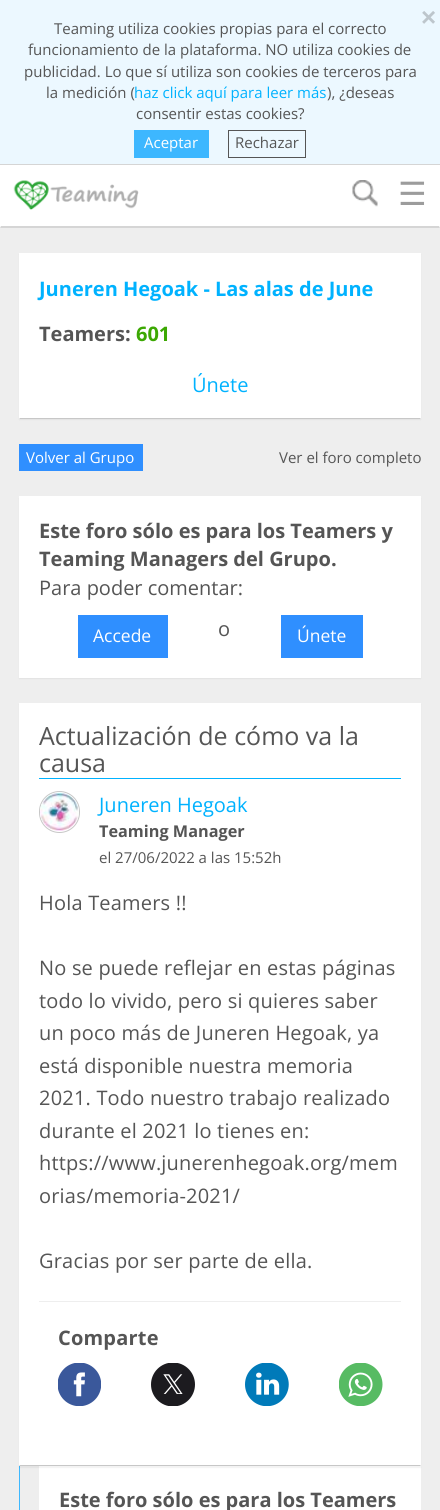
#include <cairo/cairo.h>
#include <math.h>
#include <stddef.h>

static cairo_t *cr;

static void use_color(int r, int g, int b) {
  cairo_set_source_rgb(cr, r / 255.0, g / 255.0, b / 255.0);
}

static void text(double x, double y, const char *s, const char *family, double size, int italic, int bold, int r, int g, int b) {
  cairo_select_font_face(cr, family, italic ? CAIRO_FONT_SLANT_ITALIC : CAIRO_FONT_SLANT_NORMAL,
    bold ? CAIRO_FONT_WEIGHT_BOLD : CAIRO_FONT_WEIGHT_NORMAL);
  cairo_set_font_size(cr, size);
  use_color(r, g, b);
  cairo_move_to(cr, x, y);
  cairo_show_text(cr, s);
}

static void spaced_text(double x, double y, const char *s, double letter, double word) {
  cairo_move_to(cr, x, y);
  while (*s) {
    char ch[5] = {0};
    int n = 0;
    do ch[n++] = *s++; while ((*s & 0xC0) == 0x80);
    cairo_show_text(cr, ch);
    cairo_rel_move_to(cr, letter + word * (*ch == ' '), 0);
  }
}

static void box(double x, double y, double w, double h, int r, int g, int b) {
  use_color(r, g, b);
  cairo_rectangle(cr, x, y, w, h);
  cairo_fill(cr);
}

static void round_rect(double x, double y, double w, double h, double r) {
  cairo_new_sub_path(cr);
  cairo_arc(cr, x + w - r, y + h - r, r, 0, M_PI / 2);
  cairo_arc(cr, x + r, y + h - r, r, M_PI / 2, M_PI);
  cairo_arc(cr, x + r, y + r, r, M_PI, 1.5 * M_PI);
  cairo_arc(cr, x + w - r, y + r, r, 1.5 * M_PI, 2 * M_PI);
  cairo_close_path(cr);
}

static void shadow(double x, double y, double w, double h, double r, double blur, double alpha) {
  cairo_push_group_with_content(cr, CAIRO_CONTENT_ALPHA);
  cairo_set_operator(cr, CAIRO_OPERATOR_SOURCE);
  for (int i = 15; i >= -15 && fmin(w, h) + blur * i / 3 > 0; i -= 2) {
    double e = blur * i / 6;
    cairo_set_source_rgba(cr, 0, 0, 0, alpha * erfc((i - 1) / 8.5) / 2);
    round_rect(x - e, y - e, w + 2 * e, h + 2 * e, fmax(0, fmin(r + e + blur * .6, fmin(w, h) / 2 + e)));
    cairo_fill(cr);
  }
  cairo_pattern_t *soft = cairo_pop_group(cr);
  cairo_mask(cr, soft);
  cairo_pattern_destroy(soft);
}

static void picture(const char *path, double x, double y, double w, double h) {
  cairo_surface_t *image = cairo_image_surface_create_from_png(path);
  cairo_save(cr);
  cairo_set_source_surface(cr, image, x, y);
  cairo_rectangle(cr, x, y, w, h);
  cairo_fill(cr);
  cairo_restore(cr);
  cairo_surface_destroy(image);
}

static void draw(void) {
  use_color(255, 255, 255);
  cairo_paint(cr);
  box(0, 0, 440, 164, 236, 248, 255);
  box(0, 164, 440, 1, 213, 213, 213);
  box(134, 130, 75, 28, 61, 183, 255);
  cairo_rectangle(cr, 228.5, 130.5, 77, 27);
  use_color(85, 85, 85);
  cairo_set_line_width(cr, 1);
  cairo_stroke(cr);
  use_color(213, 213, 213);
  cairo_new_path(cr);
  cairo_move_to(cr, 440, 228);
  cairo_line_to(cr, 0, 228);
  cairo_line_to(cr, 1, 226);
  cairo_line_to(cr, 439, 226);
  cairo_close_path(cr);
  cairo_fill(cr);
  picture("img_01.png", 13, 180, 126, 30);
  picture("img_02.png", 352, 180, 26, 27);
  box(0, 228, 440, 1282, 238, 238, 238);
  use_color(0, 0, 0);
  shadow(19, 254, 402, 166, 0, 0.5, 0.05);
  box(19, 253, 402, 166, 255, 255, 255);
  use_color(199, 199, 199);
  cairo_new_path(cr);
  cairo_move_to(cr, 421, 419);
  cairo_line_to(cr, 19, 419);
  cairo_line_to(cr, 20, 418);
  cairo_line_to(cr, 420, 418);
  cairo_close_path(cr);
  cairo_fill(cr);
  box(19, 444, 124, 27, 47, 143, 255);
  use_color(0, 0, 0);
  shadow(19, 498, 402, 181, 0, 0.5, 0.05);
  box(19, 496, 402, 182, 255, 255, 255);
  box(78, 615, 90, 43, 47, 143, 255);
  box(281, 615, 82, 43, 47, 143, 255);
  box(19, 1466, 1, 44, 61, 184, 255);
  box(39, 1466, 382, 44, 255, 255, 255);
  use_color(0, 0, 0);
  shadow(19, 704, 402, 764, 0, 0.5, 0.05);
  box(19, 703, 402, 763, 255, 255, 255);
  use_color(199, 199, 199);
  cairo_new_path(cr);
  cairo_move_to(cr, 421, 1466);
  cairo_line_to(cr, 19, 1466);
  cairo_line_to(cr, 20, 1465);
  cairo_line_to(cr, 420, 1465);
  cairo_close_path(cr);
  cairo_fill(cr);
  box(39, 778, 362, 1, 0, 178, 255);
  round_rect(39.5, 791.5, 40, 41, 20);
  use_color(199, 199, 199);
  cairo_stroke(cr);
  picture("img_03.png", 40, 792, 39, 39);
  box(39, 1301, 362, 1, 238, 238, 238);
  picture("img_04.png", 58, 1363, 43, 43);
  picture("img_05.png", 151, 1363, 44, 43);
  picture("img_06.png", 245, 1363, 44, 43);
  picture("img_07.png", 339, 1363, 44, 43);
  text(421, 26, "×", "Liberation Sans", 26, 0, 1, 189, 198, 204);
  text(54, 34, "Teaming utiliza cookies propias para el correcto", "Open Sans", 15, 0, 0, 85, 85, 85);
  text(28, 55, "funcionamiento de la plataforma. NO utiliza cookies de", "Open Sans", 15, 0, 0, 85, 85, 85);
  text(24, 77, "publicidad. Lo que sí utiliza son cookies de terceros para", "Open Sans", 15, 0, 0, 85, 85, 85);
  text(46, 98, "la medición (", "Open Sans", 15, 0, 0, 85, 85, 85);
  text(134, 98, "haz click aquí para leer más", "Open Sans", 15, 0, 0, 0, 178, 255);
  text(327, 98, "), ¿deseas", "Open Sans", 15, 0, 0, 85, 85, 85);
  text(136, 119, "consentir estas cookies?", "Open Sans", 15, 0, 0, 85, 85, 85);
  text(144, 148, "Aceptar", "Open Sans", 15, 0, 0, 255, 255, 255);
  text(235, 148, "Rechazar", "Open Sans", 15, 0, 0, 85, 85, 85);
  text(398, 205, "☰", "DejaVu Sans", 32, 0, 0, 156, 156, 156);
  text(39, 296, "Juneren Hegoak - Las alas de June", "Open Sans", 20, 0, 1, 0, 178, 255);
  text(39, 341, "Teamers:", "Open Sans", 20, 0, 1, 85, 85, 85);
  text(136, 341, "601", "Open Sans", 20, 0, 1, 60, 168, 3);
  text(192, 392, "Únete", "Open Sans", 20, 0, 0, 0, 178, 255);
  text(26, 463, "Volver al Grupo", "Open Sans", 15, 0, 0, 255, 255, 255);
  text(279, 463, "Ver el foro completo", "Open Sans", 15, 0, 0, 85, 85, 85);
  text(39, 538, "Este foro sólo es para los Teamers y", "Open Sans", 20, 0, 1, 85, 85, 85);
  text(39, 566, "Teaming Managers del Grupo.", "Open Sans", 20, 0, 1, 85, 85, 85);
  text(39, 595, "Para poder comentar:", "Open Sans", 20, 0, 0, 85, 85, 85);
  text(93, 642, "Accede", "Open Sans", 17.5, 0, 0, 255, 255, 255);
  text(218, 636, "o", "Open Sans", 20, 0, 0, 85, 85, 85);
  text(297, 642, "Únete", "Open Sans", 17.5, 0, 0, 255, 255, 255);
  text(39, 745, "Actualización de cómo va la", "Open Sans", 25, 0, 0, 85, 85, 85);
  text(39, 772, "causa", "Open Sans", 25, 0, 0, 85, 85, 85);
  text(99, 812, "Juneren Hegoak", "Open Sans", 20, 0, 0, 0, 178, 255);
  text(99, 837, "Teaming Manager", "Open Sans", 16.25, 0, 1, 85, 85, 85);
  text(99, 863, "el 27/06/2022 a las 15:52h", "Open Sans", 15, 0, 0, 85, 85, 85);
  cairo_set_font_size(cr, 20);
  spaced_text(39, 910, "Hola Teamers !!", 0.2, 0);
  spaced_text(39, 975, "No se puede reflejar en estas páginas", 0.2, 0);
  spaced_text(39, 1008, "todo lo vivido, pero si quieres saber", 0.2, 0);
  spaced_text(39, 1040, "un poco más de Juneren Hegoak, ya", 0.2, 0);
  spaced_text(39, 1073, "está disponible nuestra memoria", 0.2, 0);
  spaced_text(39, 1105, "2021. Todo nuestro trabajo realizado", 0.2, 0);
  spaced_text(39, 1138, "durante el 2021 lo tienes en:", 0.2, 0);
  spaced_text(39, 1170, "https://www.junerenhegoak.org/mem", 0.2, 0);
  spaced_text(39, 1203, "orias/memoria-2021/", 0.2, 0);
  spaced_text(39, 1268, "Gracias por ser parte de ella.", 0.2, 0);
  cairo_select_font_face(cr, "Open Sans", CAIRO_FONT_SLANT_NORMAL, CAIRO_FONT_WEIGHT_BOLD);
  spaced_text(58, 1345, "Comparte", 0.2, 0);
  text(59, 1507, "Este foro sólo es para los Teamers", "Open Sans", 20, 0, 1, 85, 85, 85);
}

int main(void) {
  cairo_surface_t *surface = cairo_image_surface_create(CAIRO_FORMAT_RGB24, 440, 1510);
  cr = cairo_create(surface);
  cairo_font_options_t *options = cairo_font_options_create();
  cairo_font_options_set_hint_metrics(options, CAIRO_HINT_METRICS_OFF);
  cairo_font_options_set_hint_style(options, CAIRO_HINT_STYLE_NONE);
  cairo_set_font_options(cr, options);
  cairo_set_miter_limit(cr, 4);
  draw();
  cairo_surface_write_to_png(surface, "out.png");
  cairo_font_options_destroy(options);
  cairo_destroy(cr);
  cairo_surface_destroy(surface);
  return 0;
}
